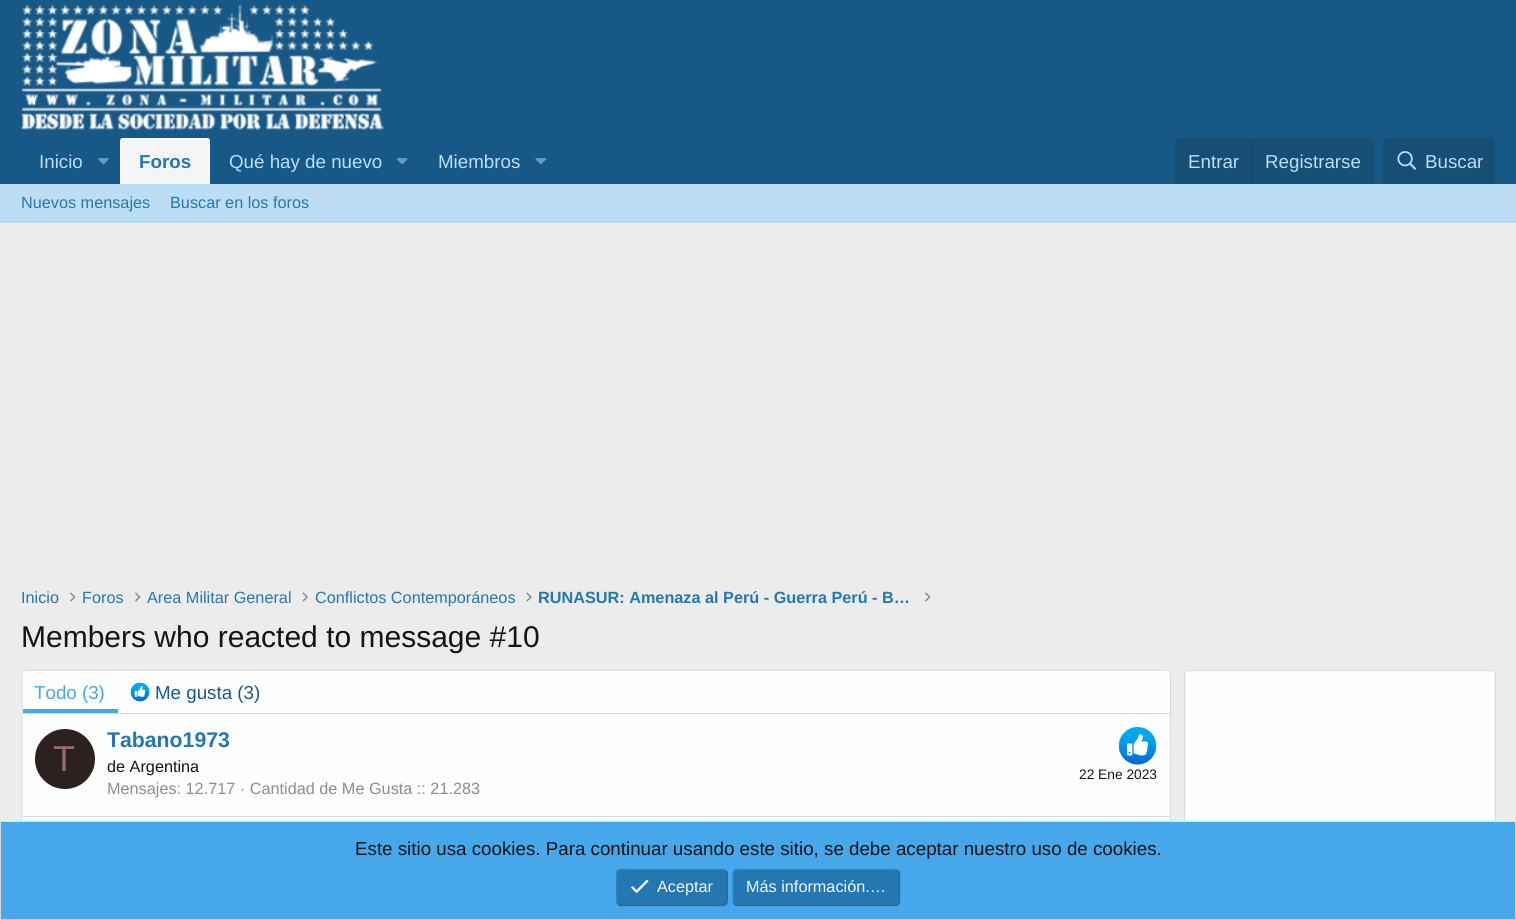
#include <cairo/cairo.h>
#include <math.h>
#include <stddef.h>

static cairo_t *cr;

static void use_color(int r, int g, int b) {
  cairo_set_source_rgb(cr, r / 255.0, g / 255.0, b / 255.0);
}

static void text(double x, double y, const char *s, const char *family, double size, int italic, int bold, int r, int g, int b) {
  cairo_select_font_face(cr, family, italic ? CAIRO_FONT_SLANT_ITALIC : CAIRO_FONT_SLANT_NORMAL,
    bold ? CAIRO_FONT_WEIGHT_BOLD : CAIRO_FONT_WEIGHT_NORMAL);
  cairo_set_font_size(cr, size);
  use_color(r, g, b);
  cairo_move_to(cr, x, y);
  cairo_show_text(cr, s);
}

static void box(double x, double y, double w, double h, int r, int g, int b) {
  use_color(r, g, b);
  cairo_rectangle(cr, x, y, w, h);
  cairo_fill(cr);
}

static void round_rect(double x, double y, double w, double h, double r) {
  cairo_new_sub_path(cr);
  cairo_arc(cr, x + w - r, y + h - r, r, 0, M_PI / 2);
  cairo_arc(cr, x + r, y + h - r, r, M_PI / 2, M_PI);
  cairo_arc(cr, x + r, y + r, r, M_PI, 1.5 * M_PI);
  cairo_arc(cr, x + w - r, y + r, r, 1.5 * M_PI, 2 * M_PI);
  cairo_close_path(cr);
}

static void picture(const char *path, double x, double y, double w, double h) {
  cairo_surface_t *image = cairo_image_surface_create_from_png(path);
  cairo_save(cr);
  cairo_set_source_surface(cr, image, x, y);
  cairo_rectangle(cr, x, y, w, h);
  cairo_fill(cr);
  cairo_restore(cr);
  cairo_surface_destroy(image);
}

static void draw(void) {
  use_color(236, 236, 236);
  cairo_paint(cr);
  box(0, 0, 1516, 184, 24, 88, 134);
  picture("img_01.png", 21, 4, 363, 126);
  picture("img_02.png", 98, 158, 11, 7);
  use_color(245, 245, 245);
  cairo_new_path(cr);
  cairo_move_to(cr, 122.5, 138);
  cairo_line_to(cr, 207.5, 138);
  cairo_curve_to(cr, 209, 138, 210, 139, 210, 140.5);
  cairo_line_to(cr, 210, 184);
  cairo_line_to(cr, 120, 184);
  cairo_line_to(cr, 120, 140.5);
  cairo_curve_to(cr, 120, 139, 121, 138, 122.5, 138);
  cairo_close_path(cr);
  cairo_fill(cr);
  picture("img_03.png", 396, 158, 12, 7);
  picture("img_04.png", 535, 158, 12, 7);
  use_color(23, 78, 117);
  cairo_new_path(cr);
  cairo_move_to(cr, 1180, 138);
  cairo_line_to(cr, 1369, 138);
  cairo_curve_to(cr, 1372, 138, 1374, 140, 1374, 143);
  cairo_line_to(cr, 1374, 184);
  cairo_line_to(cr, 1175, 184);
  cairo_line_to(cr, 1175, 143);
  cairo_curve_to(cr, 1175, 140, 1177, 138, 1180, 138);
  cairo_close_path(cr);
  cairo_fill(cr);
  box(1251, 138, 1, 46, 23, 69, 102);
  use_color(23, 78, 117);
  cairo_new_path(cr);
  cairo_move_to(cr, 1388, 138);
  cairo_line_to(cr, 1490, 138);
  cairo_curve_to(cr, 1493, 138, 1495, 140, 1495, 143);
  cairo_line_to(cr, 1495, 184);
  cairo_line_to(cr, 1383, 184);
  cairo_line_to(cr, 1383, 143);
  cairo_curve_to(cr, 1383, 140, 1385, 138, 1388, 138);
  cairo_close_path(cr);
  cairo_fill(cr);
  picture("img_05.png", 1397, 151, 20, 19);
  box(0, 184, 1516, 39, 188, 222, 245);
  box(0, 221, 1516, 1, 203, 203, 203);
  picture("img_06.png", 70, 592, 6, 10);
  picture("img_06.png", 135, 592, 6, 10);
  picture("img_07.png", 302, 592, 6, 10);
  picture("img_08.png", 526, 592, 6, 10);
  picture("img_06.png", 925, 592, 6, 10);
  use_color(254, 254, 254);
  round_rect(21, 670, 1150, 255, 5);
  cairo_fill(cr);
  cairo_new_path(cr);
  cairo_move_to(cr, 23, 672);
  cairo_line_to(cr, 26, 670.5);
  cairo_line_to(cr, 1166, 670.5);
  cairo_line_to(cr, 1169.5, 672);
  use_color(223, 223, 223);
  cairo_set_line_width(cr, 1.2);
  cairo_stroke(cr);
  cairo_new_path(cr);
  cairo_move_to(cr, 1169.5, 672);
  cairo_curve_to(cr, 1170, 672.5, 1170.5, 674, 1170.5, 675);
  cairo_line_to(cr, 1170.5, 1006);
  cairo_curve_to(cr, 1170.5, 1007.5, 1170, 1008.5, 1169.5, 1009.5);
  use_color(216, 216, 216);
  cairo_stroke(cr);
  cairo_new_path(cr);
  cairo_move_to(cr, 23, 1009.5);
  cairo_curve_to(cr, 22.5, 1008.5, 22, 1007.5, 22, 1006);
  cairo_line_to(cr, 22, 675);
  cairo_curve_to(cr, 22, 674, 22.5, 672.5, 23, 672);
  cairo_stroke(cr);
  use_color(254, 254, 254);
  cairo_new_path(cr);
  cairo_move_to(cr, 27, 671);
  cairo_line_to(cr, 1166, 671);
  cairo_curve_to(cr, 1168, 671, 1170, 673, 1170, 675);
  cairo_line_to(cr, 1170, 714);
  cairo_line_to(cr, 23, 714);
  cairo_line_to(cr, 23, 675);
  cairo_curve_to(cr, 23, 673, 25, 671, 27, 671);
  cairo_close_path(cr);
  cairo_fill(cr);
  box(23, 713, 1147, 1, 216, 216, 216);
  box(23, 709, 95, 4, 71, 167, 235);
  picture("img_09.png", 130, 682, 20, 20);
  use_color(44, 33, 33);
  cairo_arc(cr, 65, 759, 30, 0, 2 * M_PI);
  cairo_fill(cr);
  picture("img_10.png", 1118, 727, 39, 38);
  box(23, 816, 1147, 1, 223, 223, 223);
  use_color(254, 254, 254);
  round_rect(1184, 670, 312, 211, 5);
  cairo_fill(cr);
  cairo_new_path(cr);
  cairo_move_to(cr, 1185.5, 672);
  cairo_curve_to(cr, 1186.5, 671, 1187.5, 670.5, 1189, 670.5);
  cairo_line_to(cr, 1491, 670.5);
  cairo_curve_to(cr, 1492.5, 670.5, 1493.5, 671, 1494.5, 672);
  use_color(223, 223, 223);
  cairo_stroke(cr);
  cairo_new_path(cr);
  cairo_move_to(cr, 1494.5, 672);
  cairo_curve_to(cr, 1495, 672.5, 1495.5, 674, 1495.5, 675);
  cairo_line_to(cr, 1495.5, 876);
  cairo_curve_to(cr, 1495.5, 877.5, 1495, 878.5, 1494.5, 879.5);
  use_color(216, 216, 216);
  cairo_stroke(cr);
  cairo_new_path(cr);
  cairo_move_to(cr, 1185.5, 879.5);
  cairo_curve_to(cr, 1185, 878.5, 1184.5, 877.5, 1184.5, 876);
  cairo_line_to(cr, 1184.5, 675);
  cairo_curve_to(cr, 1184.5, 674, 1185, 672.5, 1185.5, 672);
  cairo_stroke(cr);
  box(1, 822, 1514, 97, 71, 167, 235);
  box(0, 821, 1516, 1, 223, 223, 223);
  box(1515, 821, 1, 99, 216, 216, 216);
  box(0, 919, 1516, 1, 203, 203, 203);
  box(0, 821, 1, 99, 216, 216, 216);
  use_color(37, 119, 177);
  round_rect(616, 869, 112, 37, 5);
  cairo_fill(cr);
  cairo_new_path(cr);
  cairo_move_to(cr, 725.5, 870.5);
  cairo_curve_to(cr, 728.5, 873.5, 727, 880, 727, 883);
  cairo_curve_to(cr, 727, 908.5, 731.5, 905.5, 705.5, 905.5);
  cairo_line_to(cr, 621, 905.5);
  cairo_line_to(cr, 618, 904.5);
  use_color(33, 105, 156);
  cairo_stroke(cr);
  cairo_new_path(cr);
  cairo_move_to(cr, 618, 904.5);
  cairo_curve_to(cr, 615.5, 901.5, 617, 895, 617, 892);
  cairo_curve_to(cr, 617, 866.5, 612, 869.5, 638, 869.5);
  cairo_line_to(cr, 722.5, 869.5);
  cairo_line_to(cr, 725.5, 870.5);
  use_color(41, 133, 198);
  cairo_stroke(cr);
  picture("img_11.png", 631, 879, 18, 15);
  use_color(37, 119, 177);
  round_rect(733, 869, 167, 37, 5);
  cairo_fill(cr);
  cairo_new_path(cr);
  cairo_move_to(cr, 898, 870.5);
  cairo_curve_to(cr, 899, 871.5, 899.5, 872.5, 899.5, 874);
  cairo_line_to(cr, 899.5, 901);
  cairo_curve_to(cr, 899.5, 902.5, 899, 903.5, 898, 904.5);
  cairo_curve_to(cr, 897.5, 905, 896, 905.5, 895, 905.5);
  cairo_line_to(cr, 737.5, 905.5);
  cairo_curve_to(cr, 736.5, 905.5, 735, 905, 734.5, 904.5);
  use_color(33, 105, 156);
  cairo_stroke(cr);
  cairo_new_path(cr);
  cairo_move_to(cr, 734.5, 904.5);
  cairo_curve_to(cr, 733.5, 903.5, 733, 902.5, 733, 901);
  cairo_line_to(cr, 733, 874);
  cairo_curve_to(cr, 733, 872.5, 733.5, 871.5, 734.5, 870.5);
  cairo_curve_to(cr, 735, 870, 736.5, 869.5, 737.5, 869.5);
  cairo_line_to(cr, 895, 869.5);
  cairo_curve_to(cr, 896, 869.5, 897.5, 870, 898, 870.5);
  use_color(41, 133, 198);
  cairo_stroke(cr);
  text(39, 168, "Inicio", "Liberation Sans", 18.75, 0, 0, 188, 222, 245);
  text(139, 168, "Foros", "Liberation Sans", 18.75, 0, 1, 37, 119, 177);
  text(229, 168, "Qué hay de nuevo", "Liberation Sans", 18.75, 0, 0, 188, 222, 245);
  text(438, 168, "Miembros", "Liberation Sans", 18.75, 0, 0, 188, 222, 245);
  text(1188, 168, "Entrar", "Liberation Sans", 18.75, 0, 0, 188, 222, 245);
  text(1265, 168, "Registrarse", "Liberation Sans", 18.75, 0, 0, 188, 222, 245);
  text(1425, 168, "Buscar", "Liberation Sans", 18.75, 0, 0, 188, 222, 245);
  text(21, 208, "Nuevos mensajes", "Liberation Sans", 16.25, 0, 0, 37, 119, 177);
  text(170, 208, "Buscar en los foros", "Liberation Sans", 16.25, 0, 0, 37, 119, 177);
  text(21, 603, "Inicio", "Liberation Sans", 16.25, 0, 0, 37, 119, 177);
  text(82, 603, "Foros", "Liberation Sans", 16.25, 0, 0, 37, 119, 177);
  text(147, 603, "Area Militar General", "Liberation Sans", 16.25, 0, 0, 37, 119, 177);
  text(315, 603, "Conflictos Contemporáneos", "Liberation Sans", 16.25, 0, 0, 37, 119, 177);
  text(538, 603, "RUNASUR: Amenaza al Perú - Guerra Perú - B…", "Liberation Sans", 16.25, 0, 1, 37, 119, 177);
  text(21, 647, "Members who reacted to message #10", "Liberation Sans", 30, 0, 0, 20, 20, 20);
  text(34, 699, "Todo (3)", "Liberation Sans", 18.75, 0, 0, 71, 167, 235);
  text(155, 699, "Me gusta (3)", "Liberation Sans", 18.75, 0, 0, 24, 88, 134);
  text(53, 771, "T", "Liberation Sans", 36, 0, 0, 147, 108, 108);
  text(107, 747, "Tabano1973", "Liberation Sans", 21.25, 0, 1, 37, 119, 177);
  text(107, 772, "de Argentina", "Liberation Sans", 16.25, 0, 0, 20, 20, 20);
  text(1079, 779, "22 Ene 2023", "Liberation Sans", 13.75, 0, 0, 20, 20, 20);
  text(107, 794, "Mensajes: 12.717 · Cantidad de Me Gusta :: 21.283", "Liberation Sans", 16.25, 0, 0, 140, 140, 140);
  text(355, 855, "Este sitio usa cookies. Para continuar usando este sitio, se debe aceptar nuestro uso de cookies.", "Liberation Sans", 18.75, 0, 0, 20, 20, 20);
  text(657, 892, "Aceptar", "Liberation Sans", 16.25, 0, 0, 237, 246, 253);
  text(746, 892, "Más información.…", "Liberation Sans", 16.25, 0, 0, 237, 246, 253);
}

int main(void) {
  cairo_surface_t *surface = cairo_image_surface_create(CAIRO_FORMAT_RGB24, 1516, 920);
  cr = cairo_create(surface);
  cairo_font_options_t *options = cairo_font_options_create();
  cairo_font_options_set_hint_metrics(options, CAIRO_HINT_METRICS_OFF);
  cairo_font_options_set_hint_style(options, CAIRO_HINT_STYLE_NONE);
  cairo_set_font_options(cr, options);
  cairo_set_miter_limit(cr, 4);
  draw();
  cairo_surface_write_to_png(surface, "out.png");
  cairo_font_options_destroy(options);
  cairo_destroy(cr);
  cairo_surface_destroy(surface);
  return 0;
}
